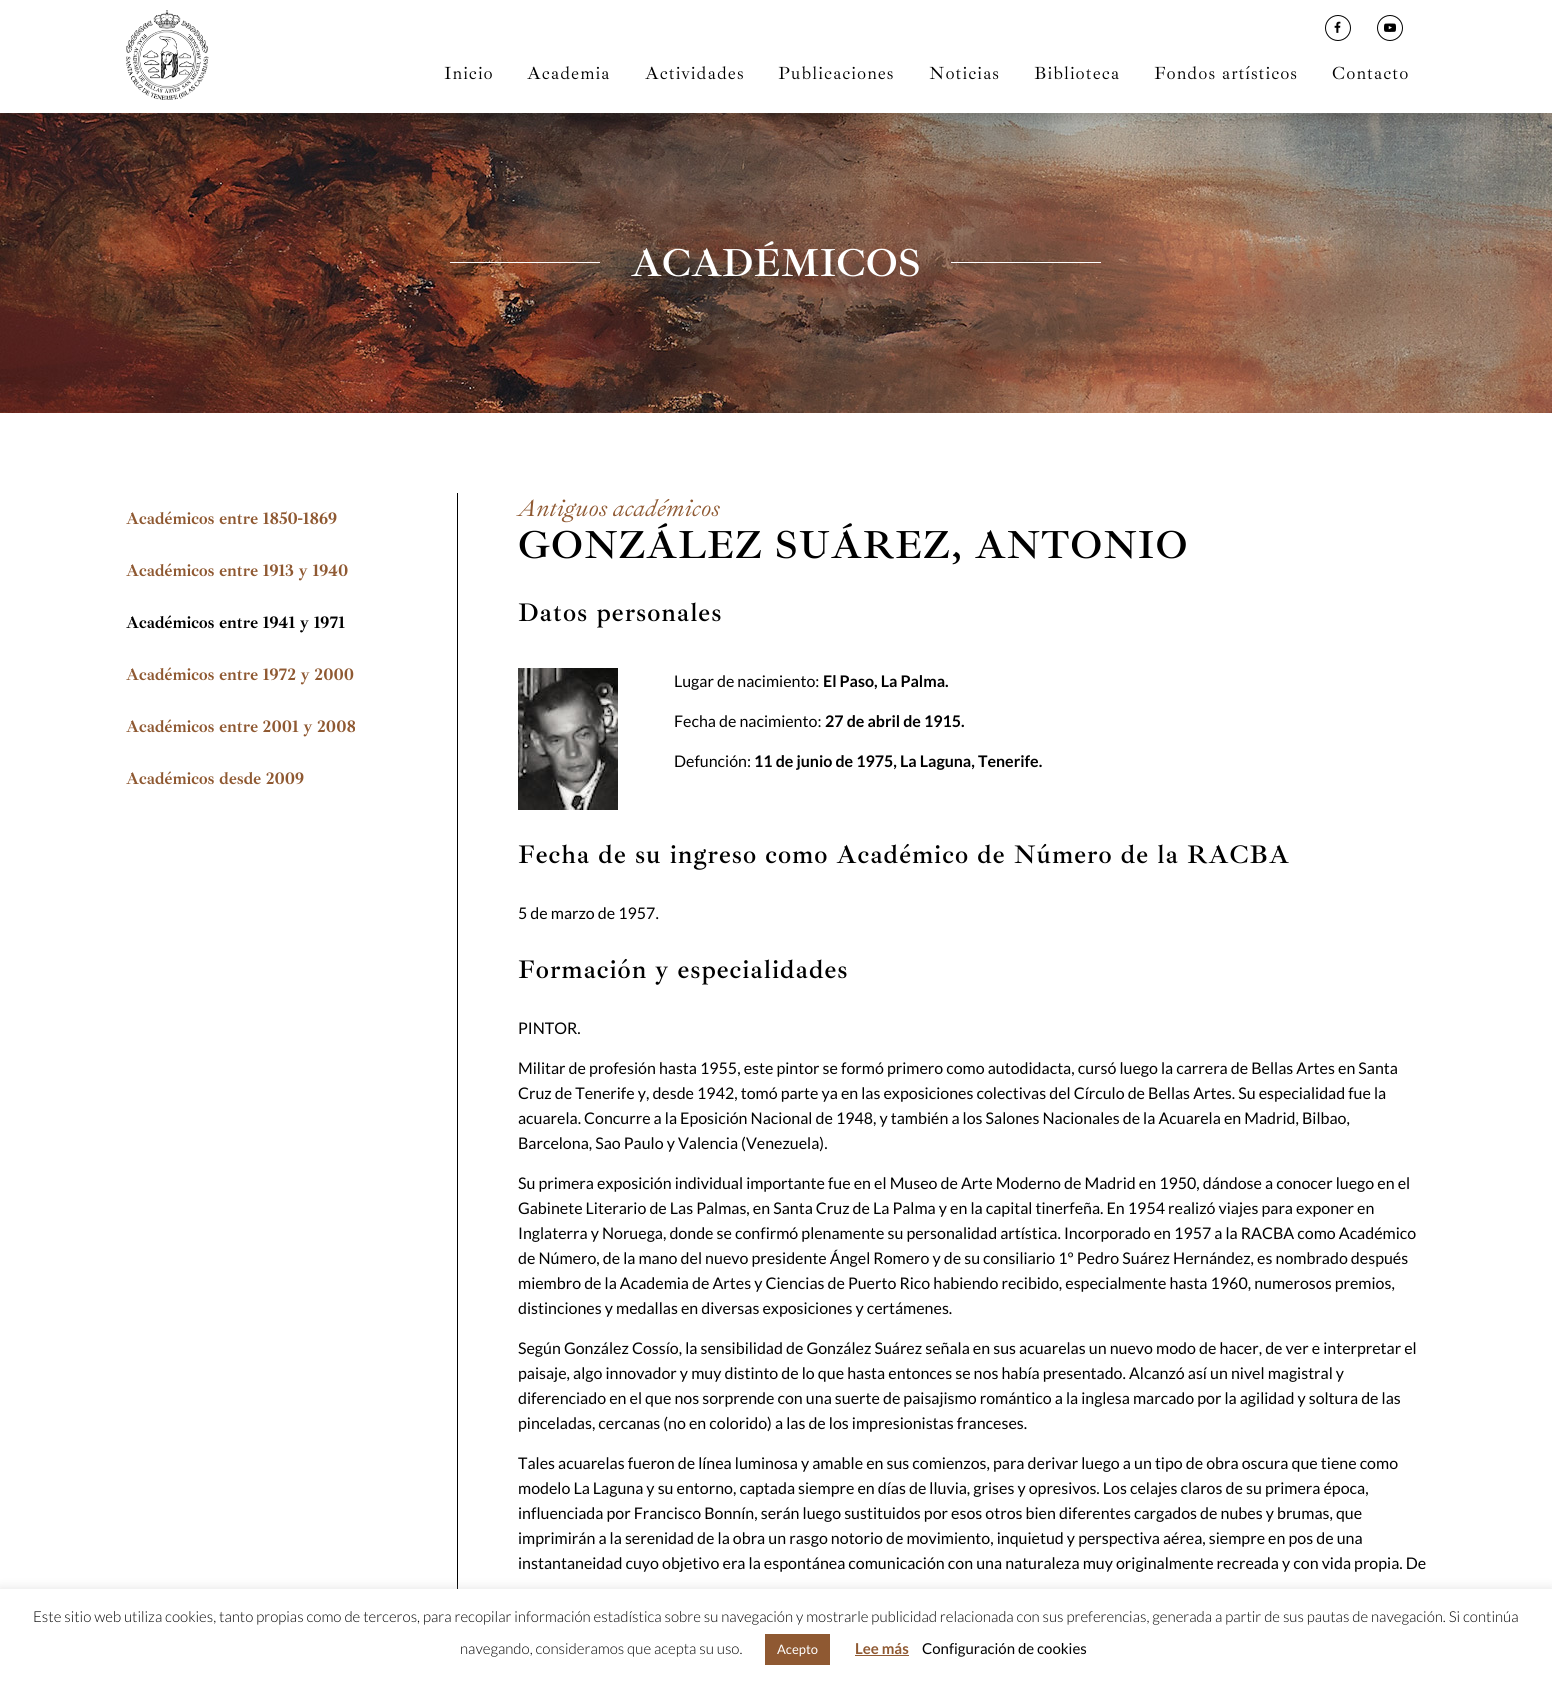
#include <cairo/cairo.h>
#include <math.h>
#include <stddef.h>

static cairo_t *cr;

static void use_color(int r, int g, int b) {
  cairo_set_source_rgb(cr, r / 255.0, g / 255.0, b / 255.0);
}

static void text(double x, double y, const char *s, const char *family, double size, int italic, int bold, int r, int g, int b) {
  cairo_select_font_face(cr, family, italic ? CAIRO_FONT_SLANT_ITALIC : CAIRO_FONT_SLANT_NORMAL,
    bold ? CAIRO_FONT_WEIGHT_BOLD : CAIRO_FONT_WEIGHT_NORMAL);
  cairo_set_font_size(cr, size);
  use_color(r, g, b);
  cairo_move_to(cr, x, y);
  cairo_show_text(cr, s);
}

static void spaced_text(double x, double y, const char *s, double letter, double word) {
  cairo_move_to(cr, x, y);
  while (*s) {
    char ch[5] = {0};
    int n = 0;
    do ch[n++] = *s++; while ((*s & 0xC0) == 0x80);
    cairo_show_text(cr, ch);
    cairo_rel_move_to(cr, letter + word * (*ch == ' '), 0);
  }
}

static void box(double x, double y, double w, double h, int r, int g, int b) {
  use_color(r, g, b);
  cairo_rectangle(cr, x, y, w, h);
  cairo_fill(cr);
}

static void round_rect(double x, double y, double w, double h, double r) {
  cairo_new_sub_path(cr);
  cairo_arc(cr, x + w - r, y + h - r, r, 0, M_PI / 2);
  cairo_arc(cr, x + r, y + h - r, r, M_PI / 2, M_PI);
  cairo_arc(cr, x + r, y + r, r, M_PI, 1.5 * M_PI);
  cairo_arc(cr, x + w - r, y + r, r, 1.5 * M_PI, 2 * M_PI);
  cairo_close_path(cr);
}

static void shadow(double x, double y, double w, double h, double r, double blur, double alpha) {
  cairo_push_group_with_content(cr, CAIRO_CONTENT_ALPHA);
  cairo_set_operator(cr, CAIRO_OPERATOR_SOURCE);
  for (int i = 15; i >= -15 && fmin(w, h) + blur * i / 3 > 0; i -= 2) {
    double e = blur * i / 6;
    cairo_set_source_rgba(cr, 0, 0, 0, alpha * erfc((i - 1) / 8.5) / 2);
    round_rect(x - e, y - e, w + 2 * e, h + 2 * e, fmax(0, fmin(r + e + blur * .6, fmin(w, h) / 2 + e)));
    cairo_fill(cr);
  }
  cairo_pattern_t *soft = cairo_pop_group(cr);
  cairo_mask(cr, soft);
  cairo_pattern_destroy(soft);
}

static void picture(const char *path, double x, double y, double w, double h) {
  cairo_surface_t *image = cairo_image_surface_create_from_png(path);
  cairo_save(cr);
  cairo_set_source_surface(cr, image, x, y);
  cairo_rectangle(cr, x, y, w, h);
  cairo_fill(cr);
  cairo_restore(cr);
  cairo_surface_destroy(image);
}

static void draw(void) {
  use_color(255, 255, 255);
  cairo_paint(cr);
  picture("img_04.png", 0, 113, 1552, 300);
  cairo_save(cr);
  cairo_rectangle(cr, 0, 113, 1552, 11);
  cairo_clip(cr);
  use_color(0, 0, 0);
  shadow(0, 39, 1552, 80, 0, 5, 0.11);
  cairo_restore(cr);
  box(8, 32, 1536, 1, 255, 255, 255);
  cairo_arc(cr, 1338, 28, 12.5, 0, 2 * M_PI);
  use_color(0, 0, 0);
  cairo_set_line_width(cr, 1);
  cairo_stroke(cr);
  picture("img_01.png", 1334, 21, 7, 12);
  cairo_arc(cr, 1390, 28, 12.5, 0, 2 * M_PI);
  cairo_stroke(cr);
  picture("img_02.png", 1384, 23, 12, 9);
  picture("img_03.png", 126, 10, 83, 90);
  box(450, 262, 150, 1, 255, 255, 255);
  box(951, 262, 150, 1, 255, 255, 255);
  box(457, 493, 1, 1096, 0, 0, 0);
  picture("img_05.png", 518, 668, 100, 142);
  use_color(172, 171, 171);
  shadow(0, 1588, 1552, 93, 0, 5, 0.3);
  box(0, 1589, 1552, 93, 255, 255, 255);
  box(765, 1634, 65, 31, 143, 89, 50);
  box(855, 1655, 54, 1, 143, 89, 50);
  cairo_select_font_face(cr, "Ibarra Real Nova", CAIRO_FONT_SLANT_NORMAL, CAIRO_FONT_WEIGHT_NORMAL);
  cairo_set_font_size(cr, 18);
  use_color(0, 0, 0);
  spaced_text(444, 79, "Inicio", 1, 0);
  spaced_text(527, 79, "Academia", 1, 0);
  spaced_text(645, 79, "Actividades", 1, 0);
  spaced_text(778, 79, "Publicaciones", 1, 0);
  spaced_text(929, 79, "Noticias", 1, 0);
  spaced_text(1034, 79, "Biblioteca", 1, 0);
  spaced_text(1154, 79, "Fondos artísticos", 1, 0);
  spaced_text(1332, 79, "Contacto", 1, 0);
  text(631, 276, "ACADÉMICOS", "Ibarra Real Nova SemiBold", 40, 0, 0, 255, 255, 255);
  text(126, 524, "Académicos entre 1850-1869", "Ibarra Real Nova", 17, 0, 1, 143, 89, 50);
  text(126, 576, "Académicos entre 1913 y 1940", "Ibarra Real Nova", 17, 0, 1, 143, 89, 50);
  text(126, 628, "Académicos entre 1941 y 1971", "Ibarra Real Nova", 17, 0, 1, 0, 0, 0);
  text(126, 680, "Académicos entre 1972 y 2000", "Ibarra Real Nova", 17, 0, 1, 143, 89, 50);
  text(126, 732, "Académicos entre 2001 y 2008", "Ibarra Real Nova", 17, 0, 1, 143, 89, 50);
  text(126, 784, "Académicos desde 2009", "Ibarra Real Nova", 17, 0, 1, 143, 89, 50);
  text(518, 516, "Antiguos académicos", "Ibarra Real Nova", 24, 1, 0, 143, 89, 50);
  cairo_select_font_face(cr, "Ibarra Real Nova SemiBold", CAIRO_FONT_SLANT_NORMAL, CAIRO_FONT_WEIGHT_NORMAL);
  cairo_set_font_size(cr, 40);
  use_color(0, 0, 0);
  spaced_text(518, 558, "GONZÁLEZ SUÁREZ, ANTONIO", 1, 0);
  cairo_set_font_size(cr, 26);
  spaced_text(518, 621, "Datos personales", 1, 0);
  text(674, 687, "Lugar de nacimiento:", "Lato", 16, 0, 0, 0, 0, 0);
  text(823, 687, "El Paso, La Palma.", "Lato", 16, 0, 1, 0, 0, 0);
  text(674, 727, "Fecha de nacimiento:", "Lato", 16, 0, 0, 0, 0, 0);
  text(825, 727, "27 de abril de 1915.", "Lato", 16, 0, 1, 0, 0, 0);
  text(674, 767, "Defunción:", "Lato", 16, 0, 0, 0, 0, 0);
  text(754, 767, "11 de junio de 1975, La Laguna, Tenerife.", "Lato", 16, 0, 1, 0, 0, 0);
  cairo_select_font_face(cr, "Ibarra Real Nova SemiBold", CAIRO_FONT_SLANT_NORMAL, CAIRO_FONT_WEIGHT_NORMAL);
  cairo_set_font_size(cr, 26);
  spaced_text(518, 863, "Fecha de su ingreso como Académico de Número de la RACBA", 1, 0);
  text(518, 919, "5 de marzo de 1957.", "Lato", 16, 0, 0, 0, 0, 0);
  cairo_select_font_face(cr, "Ibarra Real Nova SemiBold", CAIRO_FONT_SLANT_NORMAL, CAIRO_FONT_WEIGHT_NORMAL);
  cairo_set_font_size(cr, 26);
  spaced_text(518, 978, "Formación y especialidades", 1, 0);
  text(518, 1034, "PINTOR.", "Lato", 16, 0, 0, 0, 0, 0);
  text(518, 1074, "Militar de profesión hasta 1955, este pintor se formó primero como autodidacta, cursó luego la carrera de Bellas Artes en Santa", "Lato", 16, 0, 0, 0, 0, 0);
  text(518, 1099, "Cruz de Tenerife y, desde 1942, tomó parte ya en las exposiciones colectivas del Círculo de Bellas Artes. Su especialidad fue la", "Lato", 16, 0, 0, 0, 0, 0);
  text(518, 1124, "acuarela. Concurre a la Eposición Nacional de 1948, y también a los Salones Nacionales de la Acuarela en Madrid, Bilbao,", "Lato", 16, 0, 0, 0, 0, 0);
  text(518, 1149, "Barcelona, Sao Paulo y Valencia (Venezuela).", "Lato", 16, 0, 0, 0, 0, 0);
  text(518, 1189, "Su primera exposición individual importante fue en el Museo de Arte Moderno de Madrid en 1950, dándose a conocer luego en el", "Lato", 16, 0, 0, 0, 0, 0);
  text(518, 1214, "Gabinete Literario de Las Palmas, en Santa Cruz de La Palma y en la capital tinerfeña. En 1954 realizó viajes para exponer en", "Lato", 16, 0, 0, 0, 0, 0);
  text(518, 1239, "Inglaterra y Noruega, donde se confirmó plenamente su personalidad artística. Incorporado en 1957 a la RACBA como Académico", "Lato", 16, 0, 0, 0, 0, 0);
  text(518, 1264, "de Número, de la mano del nuevo presidente Ángel Romero y de su consiliario 1º Pedro Suárez Hernández, es nombrado después", "Lato", 16, 0, 0, 0, 0, 0);
  text(518, 1289, "miembro de la Academia de Artes y Ciencias de Puerto Rico habiendo recibido, especialmente hasta 1960, numerosos premios,", "Lato", 16, 0, 0, 0, 0, 0);
  text(518, 1314, "distinciones y medallas en diversas exposiciones y certámenes.", "Lato", 16, 0, 0, 0, 0, 0);
  text(518, 1354, "Según González Cossío, la sensibilidad de González Suárez señala en sus acuarelas un nuevo modo de hacer, de ver e interpretar el", "Lato", 16, 0, 0, 0, 0, 0);
  text(518, 1379, "paisaje, algo innovador y muy distinto de lo que hasta entonces se nos había presentado. Alcanzó así un nivel magistral y", "Lato", 16, 0, 0, 0, 0, 0);
  text(518, 1404, "diferenciado en el que nos sorprende con una suerte de paisajismo romántico a la inglesa marcado por la agilidad y soltura de las", "Lato", 16, 0, 0, 0, 0, 0);
  text(518, 1429, "pinceladas, cercanas (no en colorido) a las de los impresionistas franceses.", "Lato", 16, 0, 0, 0, 0, 0);
  text(518, 1469, "Tales acuarelas fueron de línea luminosa y amable en sus comienzos, para derivar luego a un tipo de obra oscura que tiene como", "Lato", 16, 0, 0, 0, 0, 0);
  text(518, 1494, "modelo La Laguna y su entorno, captada siempre en días de lluvia, grises y opresivos. Los celajes claros de su primera época,", "Lato", 16, 0, 0, 0, 0, 0);
  text(518, 1519, "influenciada por Francisco Bonnín, serán luego sustituidos por esos otros bien diferentes cargados de nubes y brumas, que", "Lato", 16, 0, 0, 0, 0, 0);
  text(518, 1544, "imprimirán a la serenidad de la obra un rasgo notorio de movimiento, inquietud y perspectiva aérea, siempre en pos de una", "Lato", 16, 0, 0, 0, 0, 0);
  text(518, 1569, "instantaneidad cuyo objetivo era la espontánea comunicación con una naturaleza muy originalmente recreada y con vida propia. De", "Lato", 16, 0, 0, 0, 0, 0);
  text(33, 1622, "Este sitio web utiliza cookies, tanto propias como de terceros, para recopilar información estadística sobre su navegación y mostrarle publicidad relacionada con sus preferencias, generada a partir de sus pautas de navegación. Si continúa", "Lato Light", 15, 0, 0, 0, 0, 0);
  text(460, 1654, "navegando, consideramos que acepta su uso.", "Lato Light", 15, 0, 0, 0, 0, 0);
  text(777, 1654, "Acepto", "Lato", 13, 0, 0, 255, 255, 255);
  text(855, 1654, "Lee más", "Lato", 15, 0, 1, 143, 89, 50);
  text(922, 1654, "Configuración de cookies", "Lato", 15, 0, 0, 0, 0, 0);
}

int main(void) {
  cairo_surface_t *surface = cairo_image_surface_create(CAIRO_FORMAT_RGB24, 1552, 1682);
  cr = cairo_create(surface);
  cairo_font_options_t *options = cairo_font_options_create();
  cairo_font_options_set_hint_metrics(options, CAIRO_HINT_METRICS_OFF);
  cairo_font_options_set_hint_style(options, CAIRO_HINT_STYLE_NONE);
  cairo_set_font_options(cr, options);
  cairo_set_miter_limit(cr, 4);
  draw();
  cairo_surface_write_to_png(surface, "out.png");
  cairo_font_options_destroy(options);
  cairo_destroy(cr);
  cairo_surface_destroy(surface);
  return 0;
}
